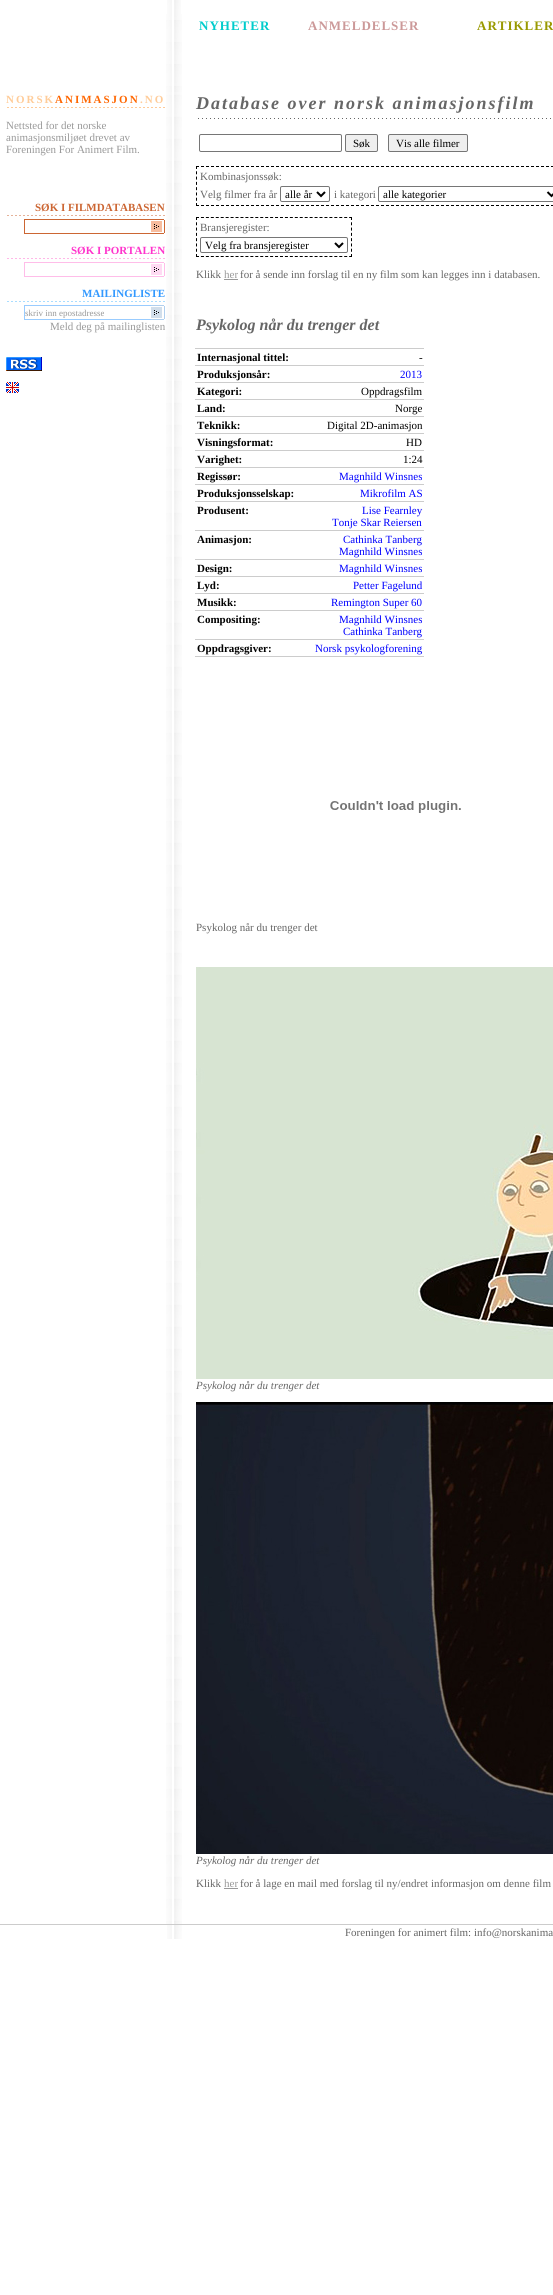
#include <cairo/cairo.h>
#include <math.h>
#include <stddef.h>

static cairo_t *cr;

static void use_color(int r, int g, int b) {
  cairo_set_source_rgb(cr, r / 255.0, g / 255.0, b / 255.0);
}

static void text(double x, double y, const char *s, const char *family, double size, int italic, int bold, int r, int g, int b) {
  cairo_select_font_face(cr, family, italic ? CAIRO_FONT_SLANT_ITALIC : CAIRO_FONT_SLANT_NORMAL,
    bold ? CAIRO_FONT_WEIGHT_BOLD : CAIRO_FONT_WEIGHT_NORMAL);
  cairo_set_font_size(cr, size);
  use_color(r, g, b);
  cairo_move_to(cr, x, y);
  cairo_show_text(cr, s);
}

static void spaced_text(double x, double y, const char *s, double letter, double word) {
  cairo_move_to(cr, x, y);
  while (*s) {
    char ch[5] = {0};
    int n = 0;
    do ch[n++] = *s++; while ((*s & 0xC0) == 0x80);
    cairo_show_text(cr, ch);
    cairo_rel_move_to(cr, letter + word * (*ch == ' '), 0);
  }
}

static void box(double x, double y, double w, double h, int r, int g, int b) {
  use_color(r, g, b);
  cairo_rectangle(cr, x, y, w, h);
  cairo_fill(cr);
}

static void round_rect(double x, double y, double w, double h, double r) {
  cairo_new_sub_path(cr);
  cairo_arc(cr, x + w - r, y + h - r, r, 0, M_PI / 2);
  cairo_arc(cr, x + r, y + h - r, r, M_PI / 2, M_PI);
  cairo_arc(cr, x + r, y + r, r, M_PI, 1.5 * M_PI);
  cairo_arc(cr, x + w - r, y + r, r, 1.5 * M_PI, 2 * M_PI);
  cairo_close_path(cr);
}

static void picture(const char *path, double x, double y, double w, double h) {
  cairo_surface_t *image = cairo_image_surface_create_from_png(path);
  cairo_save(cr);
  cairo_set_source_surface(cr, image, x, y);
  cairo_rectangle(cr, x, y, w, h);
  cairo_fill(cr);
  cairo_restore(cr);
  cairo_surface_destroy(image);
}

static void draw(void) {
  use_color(255, 255, 255);
  cairo_paint(cr);
  picture("img_01.png", 167, 0, 14, 14);
  picture("img_02.png", 166, 14, 16, 78);
  picture("img_03.png", 166, 92, 16, 1832);
  picture("img_04.png", 7, 107, 158, 1);
  picture("img_05.png", 7, 215, 158, 1);
  box(24, 219, 127, 1, 204, 102, 51);
  box(24, 233, 127, 1, 204, 102, 51);
  box(24, 219, 1, 15, 204, 102, 51);
  picture("img_06.png", 151, 219, 14, 15);
  picture("img_07.png", 7, 258, 158, 1);
  box(24, 262, 127, 1, 255, 189, 233);
  box(24, 276, 127, 1, 255, 189, 233);
  box(24, 262, 1, 15, 255, 189, 233);
  picture("img_08.png", 151, 262, 14, 15);
  picture("img_09.png", 7, 301, 158, 1);
  box(24, 305, 127, 1, 153, 204, 255);
  box(24, 319, 127, 1, 153, 204, 255);
  box(24, 305, 1, 15, 153, 204, 255);
  picture("img_10.png", 151, 305, 14, 15);
  picture("img_11.png", 6, 357, 36, 14);
  picture("img_12.png", 6, 382, 13, 11);
  picture("img_13.png", 198, 118, 353, 1);
  round_rect(199.5, 134.5, 142, 17, 1.5);
  use_color(118, 118, 118);
  cairo_set_line_width(cr, 1);
  cairo_stroke(cr);
  use_color(239, 239, 239);
  round_rect(345.5, 134.5, 32, 17, 1.5);
  cairo_fill_preserve(cr);
  use_color(118, 118, 118);
  cairo_stroke(cr);
  use_color(239, 239, 239);
  round_rect(388.5, 134.5, 79, 17, 1.5);
  cairo_fill_preserve(cr);
  use_color(118, 118, 118);
  cairo_stroke(cr);
  cairo_new_path(cr);
  cairo_move_to(cr, 196, 166.5);
  cairo_line_to(cr, 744, 166.5);
  use_color(0, 0, 0);
  cairo_set_dash(cr, (double[]){3, 2}, 2, 0);
  cairo_stroke(cr);
  cairo_new_path(cr);
  cairo_move_to(cr, 196, 205.5);
  cairo_line_to(cr, 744, 205.5);
  cairo_stroke(cr);
  cairo_new_path(cr);
  cairo_move_to(cr, 196.5, 166);
  cairo_line_to(cr, 196.5, 206);
  cairo_set_dash(cr, (double[]){3, 2.29}, 2, 0);
  cairo_stroke(cr);
  round_rect(280.5, 186.5, 49, 15, 1.5);
  use_color(118, 118, 118);
  cairo_set_dash(cr, NULL, 0, 0);
  cairo_stroke(cr);
  cairo_new_path(cr);
  cairo_move_to(cr, 317, 192);
  cairo_line_to(cr, 321, 196);
  cairo_line_to(cr, 325, 192);
  use_color(0, 0, 0);
  cairo_set_line_width(cr, 2);
  cairo_stroke(cr);
  round_rect(378.5, 186.5, 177, 15, 1.5);
  use_color(118, 118, 118);
  cairo_set_line_width(cr, 1);
  cairo_stroke(cr);
  cairo_new_path(cr);
  cairo_move_to(cr, 547.5, 192);
  cairo_line_to(cr, 551.5, 196);
  cairo_line_to(cr, 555.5, 192);
  use_color(0, 0, 0);
  cairo_set_line_width(cr, 2);
  cairo_stroke(cr);
  cairo_new_path(cr);
  cairo_move_to(cr, 196, 217.5);
  cairo_line_to(cr, 352, 217.5);
  cairo_set_line_width(cr, 1);
  cairo_set_dash(cr, (double[]){3, 1.94}, 2, 0);
  cairo_stroke(cr);
  cairo_new_path(cr);
  cairo_move_to(cr, 351.5, 217);
  cairo_line_to(cr, 351.5, 257);
  cairo_set_dash(cr, (double[]){3, 2.29}, 2, 0);
  cairo_stroke(cr);
  cairo_new_path(cr);
  cairo_move_to(cr, 196, 256.5);
  cairo_line_to(cr, 352, 256.5);
  cairo_set_dash(cr, (double[]){3, 1.94}, 2, 0);
  cairo_stroke(cr);
  cairo_new_path(cr);
  cairo_move_to(cr, 196.5, 217);
  cairo_line_to(cr, 196.5, 257);
  cairo_set_dash(cr, (double[]){3, 2.29}, 2, 0);
  cairo_stroke(cr);
  round_rect(200.5, 237.5, 147, 15, 1.5);
  use_color(118, 118, 118);
  cairo_set_dash(cr, NULL, 0, 0);
  cairo_stroke(cr);
  cairo_new_path(cr);
  cairo_move_to(cr, 335, 243);
  cairo_line_to(cr, 339, 247);
  cairo_line_to(cr, 343, 243);
  use_color(0, 0, 0);
  cairo_set_line_width(cr, 2);
  cairo_stroke(cr);
  box(224, 279, 14, 1, 153, 153, 153);
  box(195, 348, 229, 1, 204, 204, 204);
  box(195, 365, 229, 1, 204, 204, 204);
  box(195, 382, 229, 1, 204, 204, 204);
  box(195, 399, 229, 1, 204, 204, 204);
  box(195, 416, 229, 1, 204, 204, 204);
  box(195, 433, 229, 1, 204, 204, 204);
  box(195, 450, 229, 1, 204, 204, 204);
  box(195, 467, 229, 1, 204, 204, 204);
  box(195, 484, 229, 1, 204, 204, 204);
  box(195, 501, 229, 1, 204, 204, 204);
  box(195, 530, 229, 1, 204, 204, 204);
  box(195, 559, 229, 1, 204, 204, 204);
  box(195, 576, 229, 1, 204, 204, 204);
  box(195, 593, 229, 1, 204, 204, 204);
  box(195, 610, 229, 1, 204, 204, 204);
  box(195, 639, 229, 1, 204, 204, 204);
  box(195, 656, 229, 1, 204, 204, 204);
  picture("img_14.png", 330, 801, 131, 12);
  picture("img_15.png", 196, 967, 357, 412);
  picture("img_16.png", 196, 1402, 357, 452);
  box(224, 1888, 14, 1, 153, 153, 153);
  picture("img_17.png", 167, 1925, 15, 14);
  box(0, 1924, 553, 1, 204, 204, 204);
  cairo_select_font_face(cr, "Liberation Serif", CAIRO_FONT_SLANT_NORMAL, CAIRO_FONT_WEIGHT_BOLD);
  cairo_set_font_size(cr, 13);
  use_color(0, 204, 204);
  spaced_text(199, 30, "NYHETER", 1, 0);
  use_color(204, 153, 153);
  spaced_text(308, 30, "ANMELDELSER", 1, 0);
  use_color(153, 153, 0);
  spaced_text(477, 30, "ARTIKLER", 1, 0);
  cairo_set_font_size(cr, 11);
  use_color(255, 204, 153);
  spaced_text(6, 103, "NORSK", 2, 0);
  use_color(255, 102, 0);
  spaced_text(55, 103, "ANIMASJON", 2, 0);
  use_color(255, 204, 153);
  spaced_text(140, 103, ".NO", 2, 0);
  text(6, 129, "Nettsted for det norske", "Liberation Serif", 11, 0, 0, 153, 153, 153);
  text(6, 141, "animasjonsmiljøet drevet av", "Liberation Serif", 11, 0, 0, 153, 153, 153);
  text(6, 153, "Foreningen For Animert Film.", "Liberation Serif", 11, 0, 0, 153, 153, 153);
  text(35, 211, "SØK I FILMDATABASEN", "Liberation Serif", 11, 0, 1, 204, 102, 51);
  text(71, 254, "SØK I PORTALEN", "Liberation Serif", 11, 0, 1, 255, 51, 204);
  text(82, 297, "MAILINGLISTE", "Liberation Serif", 11, 0, 1, 51, 153, 255);
  text(25, 316, "skriv inn epostadresse", "Liberation Serif", 9, 0, 0, 153, 153, 153);
  text(50, 330, "Meld deg på mailinglisten", "Liberation Serif", 11, 0, 0, 153, 153, 153);
  cairo_select_font_face(cr, "Liberation Serif", CAIRO_FONT_SLANT_ITALIC, CAIRO_FONT_WEIGHT_BOLD);
  cairo_set_font_size(cr, 18);
  use_color(102, 102, 102);
  spaced_text(196, 109, "Database over norsk animasjonsfilm", 2, 0);
  text(353, 147, "Søk", "Liberation Serif", 11, 0, 0, 0, 0, 0);
  text(396, 147, "Vis alle filmer", "Liberation Serif", 11, 0, 0, 0, 0, 0);
  text(200, 180, "Kombinasjonssøk:", "Liberation Serif", 11, 0, 0, 102, 102, 102);
  text(200, 198, "Velg filmer fra år", "Liberation Serif", 11, 0, 0, 102, 102, 102);
  text(285, 198, "alle år", "Liberation Serif", 11, 0, 0, 0, 0, 0);
  text(334, 198, "i kategori", "Liberation Serif", 11, 0, 0, 102, 102, 102);
  text(383, 198, "alle kategorier", "Liberation Serif", 11, 0, 0, 0, 0, 0);
  text(200, 231, "Bransjeregister:", "Liberation Serif", 11, 0, 0, 102, 102, 102);
  text(205, 249, "Velg fra bransjeregister", "Liberation Serif", 11, 0, 0, 0, 0, 0);
  text(196, 278, "Klikk", "Liberation Serif", 11, 0, 0, 102, 102, 102);
  text(224, 278, "her", "Liberation Serif", 11, 0, 0, 153, 153, 153);
  text(240, 278, "for å sende inn forslag til en ny film som kan legges inn i databasen.", "Liberation Serif", 11, 0, 0, 102, 102, 102);
  text(196, 330, "Psykolog når du trenger det", "Liberation Serif", 16, 1, 1, 102, 102, 102);
  text(197, 361, "Internasjonal tittel:", "Liberation Serif", 11, 0, 1, 0, 0, 0);
  text(419, 361, "-", "Liberation Serif", 11, 0, 0, 0, 0, 0);
  text(197, 378, "Produksjonsår:", "Liberation Serif", 11, 0, 1, 0, 0, 0);
  text(400, 378, "2013", "Liberation Serif", 11, 0, 0, 0, 0, 255);
  text(197, 395, "Kategori:", "Liberation Serif", 11, 0, 1, 0, 0, 0);
  text(361, 395, "Oppdragsfilm", "Liberation Serif", 11, 0, 0, 0, 0, 0);
  text(197, 412, "Land:", "Liberation Serif", 11, 0, 1, 0, 0, 0);
  text(395, 412, "Norge", "Liberation Serif", 11, 0, 0, 0, 0, 0);
  text(197, 429, "Teknikk:", "Liberation Serif", 11, 0, 1, 0, 0, 0);
  text(327, 429, "Digital 2D-animasjon", "Liberation Serif", 11, 0, 0, 0, 0, 0);
  text(197, 446, "Visningsformat:", "Liberation Serif", 11, 0, 1, 0, 0, 0);
  text(406, 446, "HD", "Liberation Serif", 11, 0, 0, 0, 0, 0);
  text(197, 463, "Varighet:", "Liberation Serif", 11, 0, 1, 0, 0, 0);
  text(403, 463, "1:24", "Liberation Serif", 11, 0, 0, 0, 0, 0);
  text(197, 480, "Regissør:", "Liberation Serif", 11, 0, 1, 0, 0, 0);
  text(339, 480, "Magnhild Winsnes", "Liberation Serif", 11, 0, 0, 0, 0, 255);
  text(197, 497, "Produksjonsselskap:", "Liberation Serif", 11, 0, 1, 0, 0, 0);
  text(360, 497, "Mikrofilm AS", "Liberation Serif", 11, 0, 0, 0, 0, 255);
  text(197, 514, "Produsent:", "Liberation Serif", 11, 0, 1, 0, 0, 0);
  text(362, 514, "Lise Fearnley", "Liberation Serif", 11, 0, 0, 0, 0, 255);
  text(332, 526, "Tonje Skar Reiersen", "Liberation Serif", 11, 0, 0, 0, 0, 255);
  text(197, 543, "Animasjon:", "Liberation Serif", 11, 0, 1, 0, 0, 0);
  text(343, 543, "Cathinka Tanberg", "Liberation Serif", 11, 0, 0, 0, 0, 255);
  text(339, 555, "Magnhild Winsnes", "Liberation Serif", 11, 0, 0, 0, 0, 255);
  text(197, 572, "Design:", "Liberation Serif", 11, 0, 1, 0, 0, 0);
  text(339, 572, "Magnhild Winsnes", "Liberation Serif", 11, 0, 0, 0, 0, 255);
  text(197, 589, "Lyd:", "Liberation Serif", 11, 0, 1, 0, 0, 0);
  text(353, 589, "Petter Fagelund", "Liberation Serif", 11, 0, 0, 0, 0, 255);
  text(197, 606, "Musikk:", "Liberation Serif", 11, 0, 1, 0, 0, 0);
  text(331, 606, "Remington Super 60", "Liberation Serif", 11, 0, 0, 0, 0, 255);
  text(197, 623, "Compositing:", "Liberation Serif", 11, 0, 1, 0, 0, 0);
  text(339, 623, "Magnhild Winsnes", "Liberation Serif", 11, 0, 0, 0, 0, 255);
  text(343, 635, "Cathinka Tanberg", "Liberation Serif", 11, 0, 0, 0, 0, 255);
  text(197, 652, "Oppdragsgiver:", "Liberation Serif", 11, 0, 1, 0, 0, 0);
  text(315, 652, "Norsk psykologforening", "Liberation Serif", 11, 0, 0, 0, 0, 255);
  text(196, 931, "Psykolog når du trenger det", "Liberation Serif", 11, 0, 0, 102, 102, 102);
  text(196, 1389, "Psykolog når du trenger det", "Liberation Serif", 11, 1, 0, 102, 102, 102);
  text(196, 1864, "Psykolog når du trenger det", "Liberation Serif", 11, 1, 0, 102, 102, 102);
  text(196, 1887, "Klikk", "Liberation Serif", 11, 0, 0, 102, 102, 102);
  text(224, 1887, "her", "Liberation Serif", 11, 0, 0, 153, 153, 153);
  text(240, 1887, "for å lage en mail med forslag til ny/endret informasjon om denne film", "Liberation Serif", 11, 0, 0, 102, 102, 102);
  text(345, 1936, "Foreningen for animert film: info@norskanima", "Liberation Serif", 11, 0, 0, 102, 102, 102);
}

int main(void) {
  cairo_surface_t *surface = cairo_image_surface_create(CAIRO_FORMAT_RGB24, 553, 2295);
  cr = cairo_create(surface);
  cairo_font_options_t *options = cairo_font_options_create();
  cairo_font_options_set_hint_metrics(options, CAIRO_HINT_METRICS_OFF);
  cairo_font_options_set_hint_style(options, CAIRO_HINT_STYLE_NONE);
  cairo_set_font_options(cr, options);
  cairo_set_miter_limit(cr, 4);
  draw();
  cairo_surface_write_to_png(surface, "out.png");
  cairo_font_options_destroy(options);
  cairo_destroy(cr);
  cairo_surface_destroy(surface);
  return 0;
}
